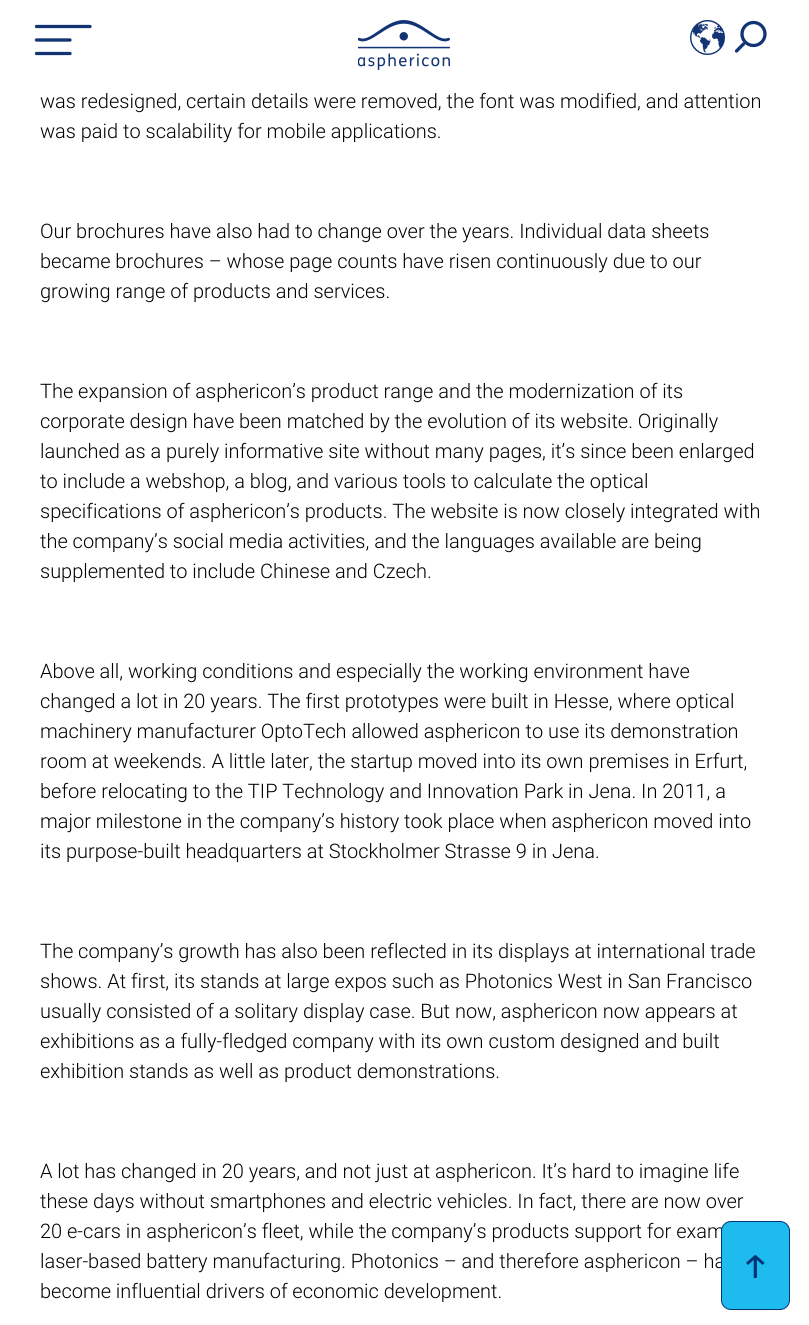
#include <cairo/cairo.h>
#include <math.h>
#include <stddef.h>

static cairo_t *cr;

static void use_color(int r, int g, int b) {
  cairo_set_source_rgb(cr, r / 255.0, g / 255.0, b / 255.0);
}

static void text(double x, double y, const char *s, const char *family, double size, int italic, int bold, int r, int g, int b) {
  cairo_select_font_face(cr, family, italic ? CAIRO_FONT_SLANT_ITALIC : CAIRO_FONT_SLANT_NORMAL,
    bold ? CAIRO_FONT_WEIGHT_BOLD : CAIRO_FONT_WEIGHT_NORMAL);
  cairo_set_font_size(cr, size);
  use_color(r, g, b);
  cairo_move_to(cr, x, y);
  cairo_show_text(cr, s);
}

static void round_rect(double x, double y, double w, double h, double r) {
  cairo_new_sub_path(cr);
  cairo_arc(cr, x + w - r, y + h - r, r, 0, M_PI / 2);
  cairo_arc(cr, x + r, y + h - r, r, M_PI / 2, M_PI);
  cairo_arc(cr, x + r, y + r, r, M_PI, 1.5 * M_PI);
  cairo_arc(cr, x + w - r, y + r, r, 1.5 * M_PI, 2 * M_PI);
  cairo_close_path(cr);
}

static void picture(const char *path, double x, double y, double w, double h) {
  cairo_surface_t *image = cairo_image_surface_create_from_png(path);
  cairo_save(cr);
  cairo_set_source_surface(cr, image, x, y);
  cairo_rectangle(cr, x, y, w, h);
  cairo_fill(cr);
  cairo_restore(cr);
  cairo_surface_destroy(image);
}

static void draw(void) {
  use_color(255, 255, 255);
  cairo_paint(cr);
  cairo_new_path(cr);
  cairo_move_to(cr, 36.5, 26.5);
  cairo_line_to(cr, 90, 26.5);
  cairo_move_to(cr, 36.5, 40);
  cairo_line_to(cr, 70, 40);
  cairo_move_to(cr, 36.5, 53.5);
  cairo_line_to(cr, 70, 53.5);
  use_color(18, 52, 116);
  cairo_set_line_width(cr, 3.3);
  cairo_set_line_cap(cr, CAIRO_LINE_CAP_ROUND);
  cairo_stroke(cr);
  picture("img_01.png", 358, 20, 92, 50);
  picture("img_02.png", 690, 20, 35, 35);
  cairo_arc(cr, 753.5, 34, 11.5, 0, 2 * M_PI);
  cairo_set_line_cap(cr, CAIRO_LINE_CAP_BUTT);
  cairo_stroke(cr);
  cairo_new_path(cr);
  cairo_move_to(cr, 736.5, 51);
  cairo_line_to(cr, 743.5, 44);
  cairo_set_line_cap(cr, CAIRO_LINE_CAP_ROUND);
  cairo_stroke(cr);
  text(40, 108, "was redesigned, certain details were removed, the font was modified, and attention", "Roboto Light", 20, 0, 0, 0, 0, 0);
  text(40, 138, "was paid to scalability for mobile applications.", "Roboto Light", 20, 0, 0, 0, 0, 0);
  text(40, 238, "Our brochures have also had to change over the years. Individual data sheets", "Roboto Light", 20, 0, 0, 0, 0, 0);
  text(40, 268, "became brochures – whose page counts have risen continuously due to our", "Roboto Light", 20, 0, 0, 0, 0, 0);
  text(40, 298, "growing range of products and services.", "Roboto Light", 20, 0, 0, 0, 0, 0);
  text(40, 398, "The expansion of asphericon’s product range and the modernization of its", "Roboto Light", 20, 0, 0, 0, 0, 0);
  text(40, 428, "corporate design have been matched by the evolution of its website. Originally", "Roboto Light", 20, 0, 0, 0, 0, 0);
  text(40, 458, "launched as a purely informative site without many pages, it’s since been enlarged", "Roboto Light", 20, 0, 0, 0, 0, 0);
  text(40, 488, "to include a webshop, a blog, and various tools to calculate the optical", "Roboto Light", 20, 0, 0, 0, 0, 0);
  text(40, 518, "specifications of asphericon’s products. The website is now closely integrated with", "Roboto Light", 20, 0, 0, 0, 0, 0);
  text(40, 548, "the company’s social media activities, and the languages available are being", "Roboto Light", 20, 0, 0, 0, 0, 0);
  text(40, 578, "supplemented to include Chinese and Czech.", "Roboto Light", 20, 0, 0, 0, 0, 0);
  text(40, 678, "Above all, working conditions and especially the working environment have", "Roboto Light", 20, 0, 0, 0, 0, 0);
  text(40, 708, "changed a lot in 20 years. The first prototypes were built in Hesse, where optical", "Roboto Light", 20, 0, 0, 0, 0, 0);
  text(40, 738, "machinery manufacturer OptoTech allowed asphericon to use its demonstration", "Roboto Light", 20, 0, 0, 0, 0, 0);
  text(40, 768, "room at weekends. A little later, the startup moved into its own premises in Erfurt,", "Roboto Light", 20, 0, 0, 0, 0, 0);
  text(40, 798, "before relocating to the TIP Technology and Innovation Park in Jena. In 2011, a", "Roboto Light", 20, 0, 0, 0, 0, 0);
  text(40, 828, "major milestone in the company’s history took place when asphericon moved into", "Roboto Light", 20, 0, 0, 0, 0, 0);
  text(40, 858, "its purpose-built headquarters at Stockholmer Strasse 9 in Jena.", "Roboto Light", 20, 0, 0, 0, 0, 0);
  text(40, 958, "The company’s growth has also been reflected in its displays at international trade", "Roboto Light", 20, 0, 0, 0, 0, 0);
  text(40, 988, "shows. At first, its stands at large expos such as Photonics West in San Francisco", "Roboto Light", 20, 0, 0, 0, 0, 0);
  text(40, 1018, "usually consisted of a solitary display case. But now, asphericon now appears at", "Roboto Light", 20, 0, 0, 0, 0, 0);
  text(40, 1048, "exhibitions as a fully-fledged company with its own custom designed and built", "Roboto Light", 20, 0, 0, 0, 0, 0);
  text(40, 1078, "exhibition stands as well as product demonstrations.", "Roboto Light", 20, 0, 0, 0, 0, 0);
  text(40, 1178, "A lot has changed in 20 years, and not just at asphericon. It’s hard to imagine life", "Roboto Light", 20, 0, 0, 0, 0, 0);
  text(40, 1208, "these days without smartphones and electric vehicles. In fact, there are now over", "Roboto Light", 20, 0, 0, 0, 0, 0);
  text(40, 1238, "20 e-cars in asphericon’s fleet, while the company’s products support for exam", "Roboto Light", 20, 0, 0, 0, 0, 0);
  text(40, 1268, "laser-based battery manufacturing. Photonics – and therefore asphericon – ha", "Roboto Light", 20, 0, 0, 0, 0, 0);
  text(40, 1298, "become influential drivers of economic development.", "Roboto Light", 20, 0, 0, 0, 0, 0);
  use_color(29, 187, 238);
  round_rect(721.5, 1221.5, 68, 88, 9.5);
  cairo_fill_preserve(cr);
  use_color(1, 52, 120);
  cairo_set_line_width(cr, 1);
  cairo_set_line_cap(cr, CAIRO_LINE_CAP_BUTT);
  cairo_stroke(cr);
  text(742, 1278, "↑", "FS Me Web", 40, 0, 0, 1, 52, 120);
}

int main(void) {
  cairo_surface_t *surface = cairo_image_surface_create(CAIRO_FORMAT_RGB24, 809, 1325);
  cr = cairo_create(surface);
  cairo_font_options_t *options = cairo_font_options_create();
  cairo_font_options_set_hint_metrics(options, CAIRO_HINT_METRICS_OFF);
  cairo_font_options_set_hint_style(options, CAIRO_HINT_STYLE_NONE);
  cairo_set_font_options(cr, options);
  cairo_set_miter_limit(cr, 4);
  draw();
  cairo_surface_write_to_png(surface, "out.png");
  cairo_font_options_destroy(options);
  cairo_destroy(cr);
  cairo_surface_destroy(surface);
  return 0;
}
